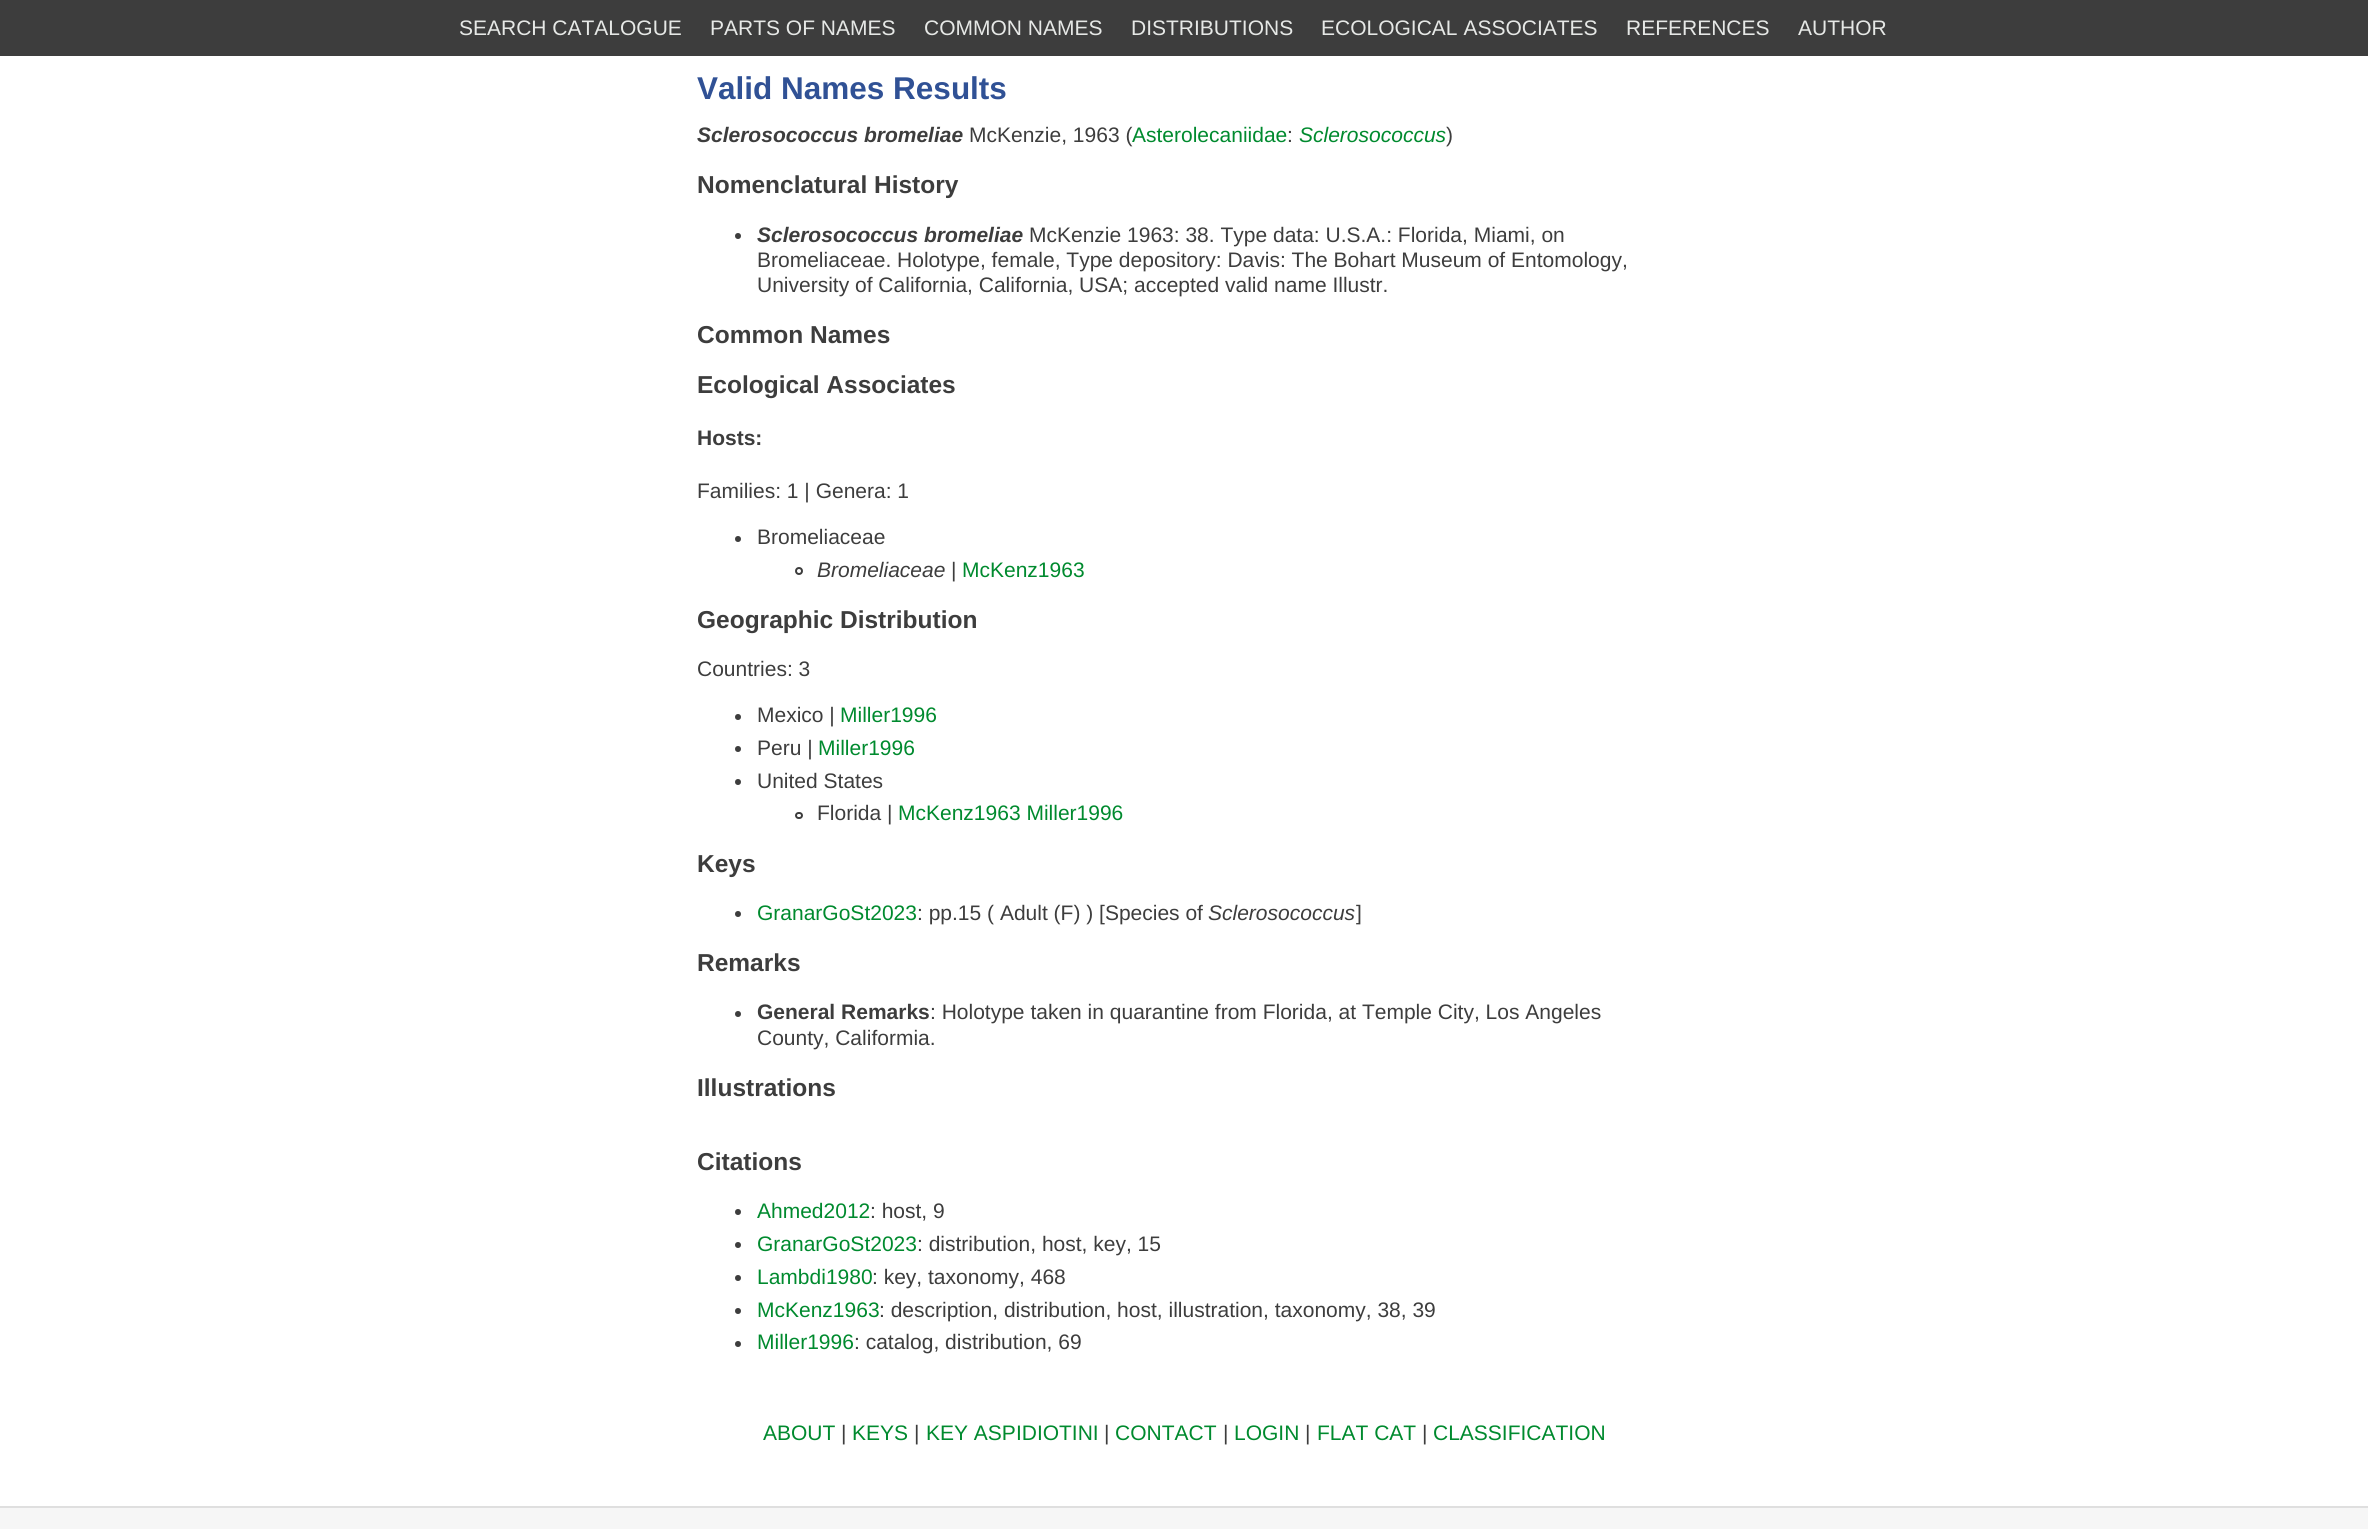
#include <cairo/cairo.h>
#include <math.h>
#include <stddef.h>

static cairo_t *cr;

static void use_color(int r, int g, int b) {
  cairo_set_source_rgb(cr, r / 255.0, g / 255.0, b / 255.0);
}

static void text(double x, double y, const char *s, const char *family, double size, int italic, int bold, int r, int g, int b) {
  cairo_select_font_face(cr, family, italic ? CAIRO_FONT_SLANT_ITALIC : CAIRO_FONT_SLANT_NORMAL,
    bold ? CAIRO_FONT_WEIGHT_BOLD : CAIRO_FONT_WEIGHT_NORMAL);
  cairo_set_font_size(cr, size);
  use_color(r, g, b);
  cairo_move_to(cr, x, y);
  cairo_show_text(cr, s);
}

static void box(double x, double y, double w, double h, int r, int g, int b) {
  use_color(r, g, b);
  cairo_rectangle(cr, x, y, w, h);
  cairo_fill(cr);
}

static void round_rect(double x, double y, double w, double h, double r) {
  cairo_new_sub_path(cr);
  cairo_arc(cr, x + w - r, y + h - r, r, 0, M_PI / 2);
  cairo_arc(cr, x + r, y + h - r, r, M_PI / 2, M_PI);
  cairo_arc(cr, x + r, y + r, r, M_PI, 1.5 * M_PI);
  cairo_arc(cr, x + w - r, y + r, r, 1.5 * M_PI, 2 * M_PI);
  cairo_close_path(cr);
}

static void draw(void) {
  use_color(246, 246, 246);
  cairo_paint(cr);
  box(0, 56, 2368, 1450, 255, 255, 255);
  box(0, 0, 2368, 56, 61, 61, 61);
  cairo_arc(cr, 738, 236, 3, 0, 2 * M_PI);
  cairo_fill(cr);
  cairo_arc(cr, 738, 539, 3, 0, 2 * M_PI);
  cairo_fill(cr);
  cairo_arc(cr, 799, 571, 3, 0, 2 * M_PI);
  cairo_stroke(cr);
  cairo_arc(cr, 738, 717, 3, 0, 2 * M_PI);
  cairo_fill(cr);
  cairo_arc(cr, 738, 749, 3, 0, 2 * M_PI);
  cairo_fill(cr);
  cairo_arc(cr, 738, 782, 3, 0, 2 * M_PI);
  cairo_fill(cr);
  round_rect(796, 813, 6, 5, 2.5);
  cairo_stroke(cr);
  cairo_arc(cr, 738, 914, 3, 0, 2 * M_PI);
  cairo_fill(cr);
  cairo_arc(cr, 738, 1014, 3, 0, 2 * M_PI);
  cairo_fill(cr);
  cairo_arc(cr, 738, 1212, 3, 0, 2 * M_PI);
  cairo_fill(cr);
  cairo_arc(cr, 738, 1245, 3, 0, 2 * M_PI);
  cairo_fill(cr);
  cairo_arc(cr, 738, 1278, 3, 0, 2 * M_PI);
  cairo_fill(cr);
  cairo_arc(cr, 738, 1311, 3, 0, 2 * M_PI);
  cairo_fill(cr);
  cairo_arc(cr, 738, 1344, 3, 0, 2 * M_PI);
  cairo_fill(cr);
  box(0, 1506, 2368, 2, 223, 223, 223);
  text(459, 35, "SEARCH CATALOGUE", "Liberation Sans", 21, 0, 0, 230, 232, 230);
  text(710, 35, "PARTS OF NAMES", "Liberation Sans", 21, 0, 0, 230, 232, 230);
  text(924, 35, "COMMON NAMES", "Liberation Sans", 21, 0, 0, 230, 232, 230);
  text(1131, 35, "DISTRIBUTIONS", "Liberation Sans", 21, 0, 0, 230, 232, 230);
  text(1321, 35, "ECOLOGICAL ASSOCIATES", "Liberation Sans", 21, 0, 0, 230, 232, 230);
  text(1626, 35, "REFERENCES", "Liberation Sans", 21, 0, 0, 230, 232, 230);
  text(1798, 35, "AUTHOR", "Liberation Sans", 21, 0, 0, 230, 232, 230);
  text(697, 99, "Valid Names Results", "Liberation Sans", 31.5, 0, 1, 48, 81, 149);
  text(697, 142, "Sclerosococcus bromeliae", "Liberation Sans", 21, 1, 1, 61, 61, 61);
  text(969, 142, "McKenzie, 1963 (", "Liberation Sans", 21, 0, 0, 61, 61, 61);
  text(1132, 142, "Asterolecaniidae", "Liberation Sans", 21, 0, 0, 0, 138, 46);
  text(1287, 142, ":", "Liberation Sans", 21, 0, 0, 61, 61, 61);
  text(1299, 142, "Sclerosococcus", "Liberation Sans", 21, 1, 0, 0, 138, 46);
  text(1446, 142, ")", "Liberation Sans", 21, 0, 0, 61, 61, 61);
  text(697, 193, "Nomenclatural History", "Liberation Sans", 24.5, 0, 1, 61, 61, 61);
  text(757, 242, "Sclerosococcus bromeliae", "Liberation Sans", 21, 1, 1, 61, 61, 61);
  text(1029, 242, "McKenzie 1963: 38. Type data: U.S.A.: Florida, Miami, on", "Liberation Sans", 21, 0, 0, 61, 61, 61);
  text(757, 267, "Bromeliaceae. Holotype, female, Type depository: Davis: The Bohart Museum of Entomology,", "Liberation Sans", 21, 0, 0, 61, 61, 61);
  text(757, 292, "University of California, California, USA; accepted valid name Illustr.", "Liberation Sans", 21, 0, 0, 61, 61, 61);
  text(697, 343, "Common Names", "Liberation Sans", 24.5, 0, 1, 61, 61, 61);
  text(697, 393, "Ecological Associates", "Liberation Sans", 24.5, 0, 1, 61, 61, 61);
  text(697, 445, "Hosts:", "Liberation Sans", 21, 0, 1, 61, 61, 61);
  text(697, 498, "Families: 1 | Genera: 1", "Liberation Sans", 21, 0, 0, 61, 61, 61);
  text(757, 544, "Bromeliaceae", "Liberation Sans", 21, 0, 0, 61, 61, 61);
  text(817, 577, "Bromeliaceae", "Liberation Sans", 21, 1, 0, 61, 61, 61);
  text(951, 577, "|", "Liberation Sans", 21, 0, 0, 61, 61, 61);
  text(962, 577, "McKenz1963", "Liberation Sans", 21, 0, 0, 0, 138, 46);
  text(697, 628, "Geographic Distribution", "Liberation Sans", 24.5, 0, 1, 61, 61, 61);
  text(697, 676, "Countries: 3", "Liberation Sans", 21, 0, 0, 61, 61, 61);
  text(757, 722, "Mexico |", "Liberation Sans", 21, 0, 0, 61, 61, 61);
  text(840, 722, "Miller1996", "Liberation Sans", 21, 0, 0, 0, 138, 46);
  text(757, 755, "Peru |", "Liberation Sans", 21, 0, 0, 61, 61, 61);
  text(818, 755, "Miller1996", "Liberation Sans", 21, 0, 0, 0, 138, 46);
  text(757, 788, "United States", "Liberation Sans", 21, 0, 0, 61, 61, 61);
  text(817, 820, "Florida |", "Liberation Sans", 21, 0, 0, 61, 61, 61);
  text(898, 820, "McKenz1963 Miller1996", "Liberation Sans", 21, 0, 0, 0, 138, 46);
  text(697, 872, "Keys", "Liberation Sans", 24.5, 0, 1, 61, 61, 61);
  text(757, 920, "GranarGoSt2023", "Liberation Sans", 21, 0, 0, 0, 138, 46);
  text(917, 920, ": pp.15 ( Adult (F) ) [Species of", "Liberation Sans", 21, 0, 0, 61, 61, 61);
  text(1208, 920, "Sclerosococcus", "Liberation Sans", 21, 1, 0, 61, 61, 61);
  text(1356, 920, "]", "Liberation Sans", 21, 0, 0, 61, 61, 61);
  text(697, 971, "Remarks", "Liberation Sans", 24.5, 0, 1, 61, 61, 61);
  text(757, 1019, "General Remarks", "Liberation Sans", 21, 0, 1, 61, 61, 61);
  text(930, 1019, ": Holotype taken in quarantine from Florida, at Temple City, Los Angeles", "Liberation Sans", 21, 0, 0, 61, 61, 61);
  text(757, 1045, "County, Califormia.", "Liberation Sans", 21, 0, 0, 61, 61, 61);
  text(697, 1096, "Illustrations", "Liberation Sans", 24.5, 0, 1, 61, 61, 61);
  text(697, 1170, "Citations", "Liberation Sans", 24.5, 0, 1, 61, 61, 61);
  text(757, 1218, "Ahmed2012", "Liberation Sans", 21, 0, 0, 0, 138, 46);
  text(870, 1218, ": host, 9", "Liberation Sans", 21, 0, 0, 61, 61, 61);
  text(757, 1251, "GranarGoSt2023", "Liberation Sans", 21, 0, 0, 0, 138, 46);
  text(917, 1251, ": distribution, host, key, 15", "Liberation Sans", 21, 0, 0, 61, 61, 61);
  text(757, 1284, "Lambdi1980", "Liberation Sans", 21, 0, 0, 0, 138, 46);
  text(872, 1284, ": key, taxonomy, 468", "Liberation Sans", 21, 0, 0, 61, 61, 61);
  text(757, 1317, "McKenz1963", "Liberation Sans", 21, 0, 0, 0, 138, 46);
  text(879, 1317, ": description, distribution, host, illustration, taxonomy, 38, 39", "Liberation Sans", 21, 0, 0, 61, 61, 61);
  text(757, 1349, "Miller1996", "Liberation Sans", 21, 0, 0, 0, 138, 46);
  text(854, 1349, ": catalog, distribution, 69", "Liberation Sans", 21, 0, 0, 61, 61, 61);
  text(763, 1440, "ABOUT", "Liberation Sans", 21, 0, 0, 0, 138, 46);
  text(841, 1440, "|", "Liberation Sans", 21, 0, 0, 61, 61, 61);
  text(852, 1440, "KEYS", "Liberation Sans", 21, 0, 0, 0, 138, 46);
  text(914, 1440, "|", "Liberation Sans", 21, 0, 0, 61, 61, 61);
  text(926, 1440, "KEY ASPIDIOTINI", "Liberation Sans", 21, 0, 0, 0, 138, 46);
  text(1104, 1440, "|", "Liberation Sans", 21, 0, 0, 61, 61, 61);
  text(1115, 1440, "CONTACT", "Liberation Sans", 21, 0, 0, 0, 138, 46);
  text(1223, 1440, "|", "Liberation Sans", 21, 0, 0, 61, 61, 61);
  text(1234, 1440, "LOGIN", "Liberation Sans", 21, 0, 0, 0, 138, 46);
  text(1305, 1440, "|", "Liberation Sans", 21, 0, 0, 61, 61, 61);
  text(1317, 1440, "FLAT CAT", "Liberation Sans", 21, 0, 0, 0, 138, 46);
  text(1422, 1440, "|", "Liberation Sans", 21, 0, 0, 61, 61, 61);
  text(1433, 1440, "CLASSIFICATION", "Liberation Sans", 21, 0, 0, 0, 138, 46);
}

int main(void) {
  cairo_surface_t *surface = cairo_image_surface_create(CAIRO_FORMAT_RGB24, 2368, 1529);
  cr = cairo_create(surface);
  cairo_font_options_t *options = cairo_font_options_create();
  cairo_font_options_set_hint_metrics(options, CAIRO_HINT_METRICS_OFF);
  cairo_font_options_set_hint_style(options, CAIRO_HINT_STYLE_NONE);
  cairo_set_font_options(cr, options);
  cairo_set_miter_limit(cr, 4);
  draw();
  cairo_surface_write_to_png(surface, "out.png");
  cairo_font_options_destroy(options);
  cairo_destroy(cr);
  cairo_surface_destroy(surface);
  return 0;
}
